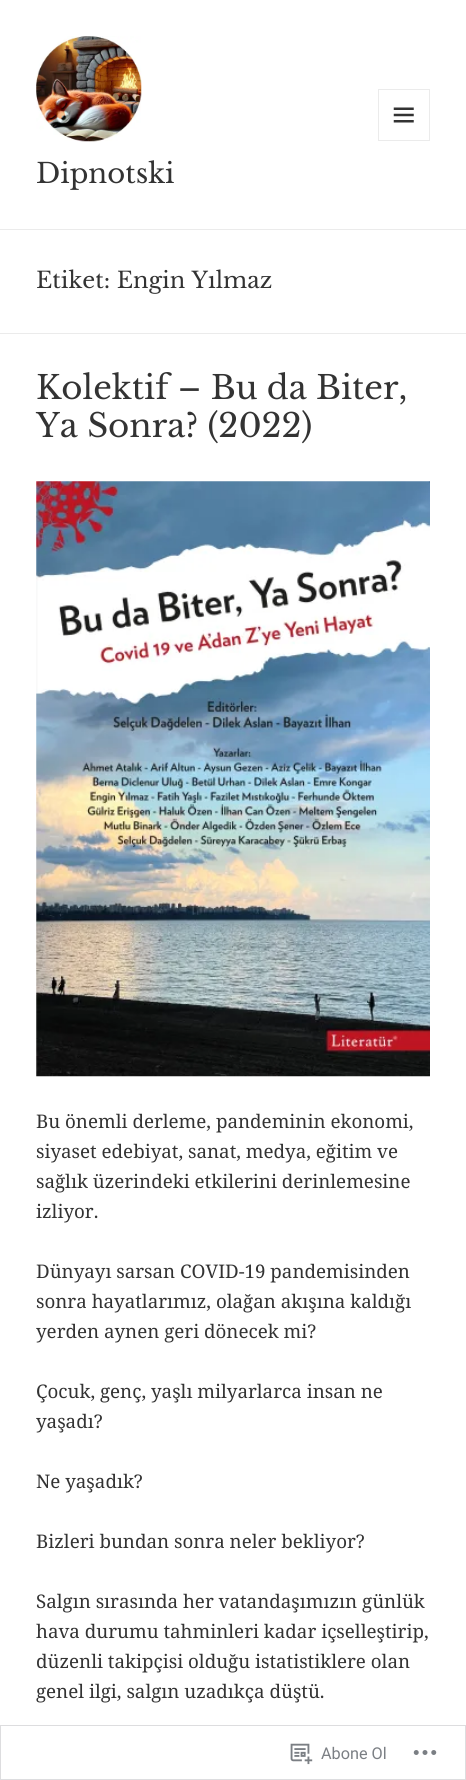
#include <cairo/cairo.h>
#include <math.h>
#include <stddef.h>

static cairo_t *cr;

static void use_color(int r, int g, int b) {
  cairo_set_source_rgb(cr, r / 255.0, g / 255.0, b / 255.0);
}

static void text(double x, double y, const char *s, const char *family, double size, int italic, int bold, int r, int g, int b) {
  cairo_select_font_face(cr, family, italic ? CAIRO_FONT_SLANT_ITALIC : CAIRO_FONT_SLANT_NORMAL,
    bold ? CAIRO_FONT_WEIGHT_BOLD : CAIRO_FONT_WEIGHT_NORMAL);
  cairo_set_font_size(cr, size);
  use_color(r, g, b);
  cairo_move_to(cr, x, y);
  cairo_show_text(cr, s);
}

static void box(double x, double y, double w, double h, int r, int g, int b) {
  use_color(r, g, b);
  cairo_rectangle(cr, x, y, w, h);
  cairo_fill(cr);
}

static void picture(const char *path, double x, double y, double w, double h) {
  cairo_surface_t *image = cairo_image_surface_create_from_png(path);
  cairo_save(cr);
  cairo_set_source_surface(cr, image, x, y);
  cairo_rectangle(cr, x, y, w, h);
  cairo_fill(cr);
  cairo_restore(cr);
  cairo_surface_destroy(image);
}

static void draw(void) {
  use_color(255, 255, 255);
  cairo_paint(cr);
  box(0, 229, 466, 1, 235, 235, 235);
  picture("img_01.png", 36, 36, 106, 106);
  cairo_rectangle(cr, 378.5, 89.5, 51, 51);
  cairo_set_line_width(cr, 1);
  cairo_stroke(cr);
  picture("img_02.png", 393, 107, 21, 16);
  box(0, 333, 466, 1, 235, 235, 235);
  picture("img_03.png", 36, 481, 394, 596);
  cairo_rectangle(cr, 0.5, 1725.5, 465, 54);
  cairo_set_source_rgba(cr, 0.863, 0.863, 0.871, 0.98);
  cairo_stroke(cr);
  picture("img_04.png", 290, 1743, 23, 22);
  picture("img_05.png", 413, 1750, 24, 5);
  text(36, 183, "Dipnotski", "Libre Baskerville", 27.5, 0, 0, 51, 51, 51);
  text(36, 288, "Etiket: Engin Yılmaz", "Libre Baskerville", 22.5, 0, 0, 51, 51, 51);
  text(36, 399, "Kolektif – Bu da Biter,", "Libre Baskerville", 32.5, 0, 0, 51, 51, 51);
  text(36, 437, "Ya Sonra? (2022)", "Libre Baskerville", 32.5, 0, 0, 51, 51, 51);
  text(36, 1128, "Bu önemli derleme, pandeminin ekonomi,", "Noto Serif", 18.75, 0, 0, 51, 51, 51);
  text(36, 1158, "siyaset edebiyat, sanat, medya, eğitim ve", "Noto Serif", 18.75, 0, 0, 51, 51, 51);
  text(36, 1188, "sağlık üzerindeki etkilerini derinlemesine", "Noto Serif", 18.75, 0, 0, 51, 51, 51);
  text(36, 1218, "izliyor.", "Noto Serif", 18.75, 0, 0, 51, 51, 51);
  text(36, 1278, "Dünyayı sarsan COVID-19 pandemisinden", "Noto Serif", 18.75, 0, 0, 51, 51, 51);
  text(36, 1308, "sonra hayatlarımız, olağan akışına kaldığı", "Noto Serif", 18.75, 0, 0, 51, 51, 51);
  text(36, 1338, "yerden aynen geri dönecek mi?", "Noto Serif", 18.75, 0, 0, 51, 51, 51);
  text(36, 1398, "Çocuk, genç, yaşlı milyarlarca insan ne", "Noto Serif", 18.75, 0, 0, 51, 51, 51);
  text(36, 1428, "yaşadı?", "Noto Serif", 18.75, 0, 0, 51, 51, 51);
  text(36, 1488, "Ne yaşadık?", "Noto Serif", 18.75, 0, 0, 51, 51, 51);
  text(36, 1548, "Bizleri bundan sonra neler bekliyor?", "Noto Serif", 18.75, 0, 0, 51, 51, 51);
  text(36, 1608, "Salgın sırasında her vatandaşımızın günlük", "Noto Serif", 18.75, 0, 0, 51, 51, 51);
  text(36, 1638, "hava durumu tahminleri kadar içselleştirip,", "Noto Serif", 18.75, 0, 0, 51, 51, 51);
  text(36, 1668, "düzenli takipçisi olduğu istatistiklere olan", "Noto Serif", 18.75, 0, 0, 51, 51, 51);
  text(36, 1698, "genel ilgi, salgın uzadıkça düştü.", "Noto Serif", 18.75, 0, 0, 51, 51, 51);
  text(321, 1759, "Abone Ol", "Roboto", 16.25, 0, 0, 123, 127, 132);
}

int main(void) {
  cairo_surface_t *surface = cairo_image_surface_create(CAIRO_FORMAT_RGB24, 466, 1780);
  cr = cairo_create(surface);
  cairo_font_options_t *options = cairo_font_options_create();
  cairo_font_options_set_hint_metrics(options, CAIRO_HINT_METRICS_OFF);
  cairo_font_options_set_hint_style(options, CAIRO_HINT_STYLE_NONE);
  cairo_set_font_options(cr, options);
  cairo_set_miter_limit(cr, 4);
  draw();
  cairo_surface_write_to_png(surface, "out.png");
  cairo_font_options_destroy(options);
  cairo_destroy(cr);
  cairo_surface_destroy(surface);
  return 0;
}
